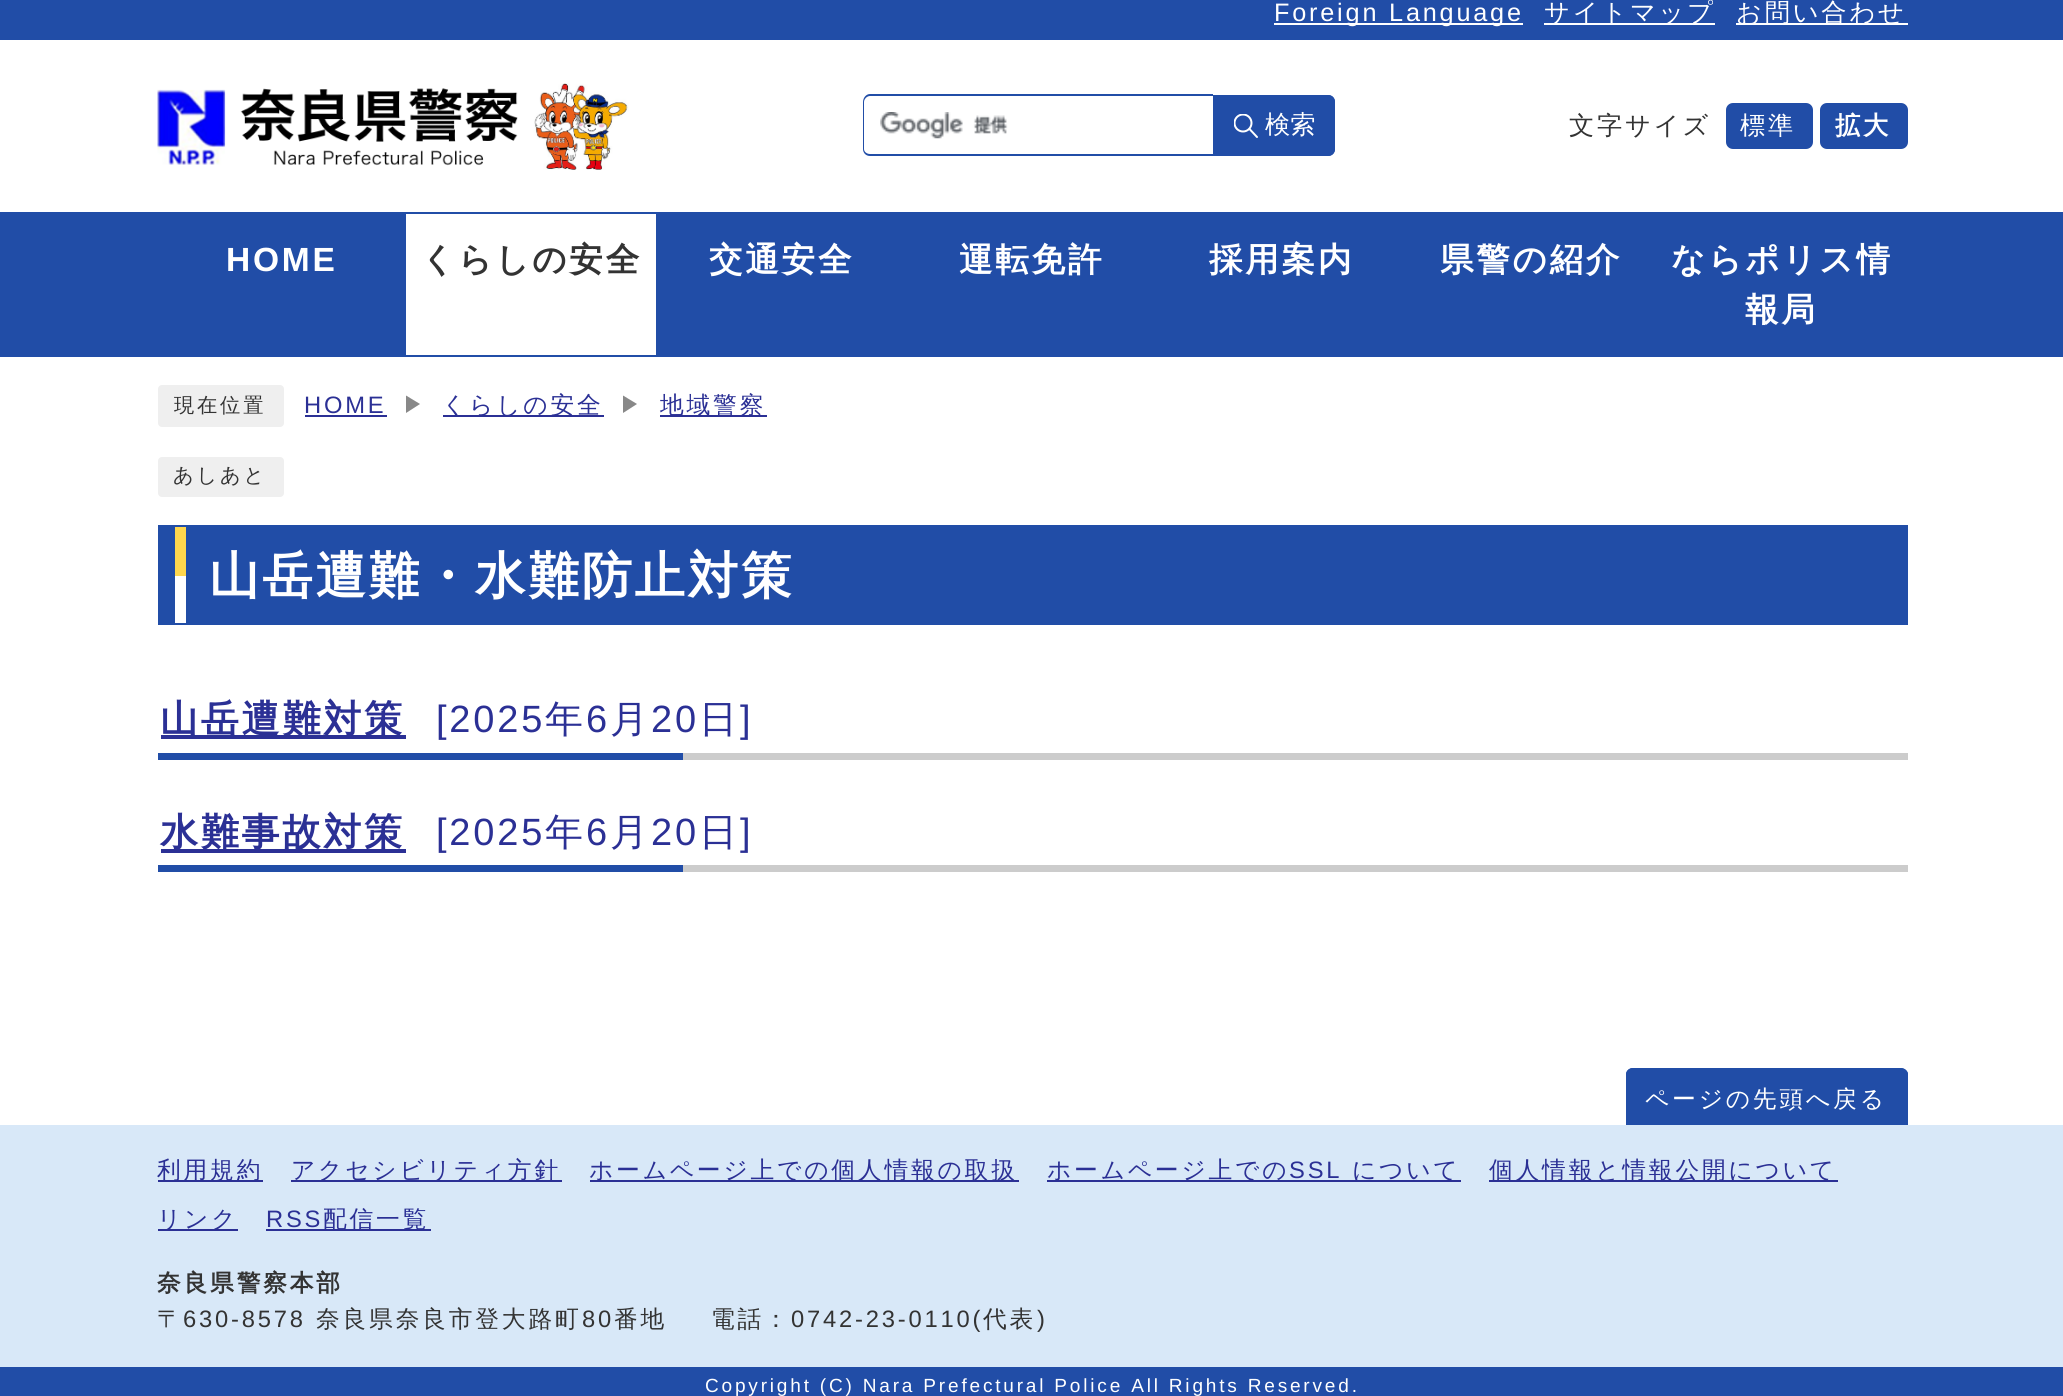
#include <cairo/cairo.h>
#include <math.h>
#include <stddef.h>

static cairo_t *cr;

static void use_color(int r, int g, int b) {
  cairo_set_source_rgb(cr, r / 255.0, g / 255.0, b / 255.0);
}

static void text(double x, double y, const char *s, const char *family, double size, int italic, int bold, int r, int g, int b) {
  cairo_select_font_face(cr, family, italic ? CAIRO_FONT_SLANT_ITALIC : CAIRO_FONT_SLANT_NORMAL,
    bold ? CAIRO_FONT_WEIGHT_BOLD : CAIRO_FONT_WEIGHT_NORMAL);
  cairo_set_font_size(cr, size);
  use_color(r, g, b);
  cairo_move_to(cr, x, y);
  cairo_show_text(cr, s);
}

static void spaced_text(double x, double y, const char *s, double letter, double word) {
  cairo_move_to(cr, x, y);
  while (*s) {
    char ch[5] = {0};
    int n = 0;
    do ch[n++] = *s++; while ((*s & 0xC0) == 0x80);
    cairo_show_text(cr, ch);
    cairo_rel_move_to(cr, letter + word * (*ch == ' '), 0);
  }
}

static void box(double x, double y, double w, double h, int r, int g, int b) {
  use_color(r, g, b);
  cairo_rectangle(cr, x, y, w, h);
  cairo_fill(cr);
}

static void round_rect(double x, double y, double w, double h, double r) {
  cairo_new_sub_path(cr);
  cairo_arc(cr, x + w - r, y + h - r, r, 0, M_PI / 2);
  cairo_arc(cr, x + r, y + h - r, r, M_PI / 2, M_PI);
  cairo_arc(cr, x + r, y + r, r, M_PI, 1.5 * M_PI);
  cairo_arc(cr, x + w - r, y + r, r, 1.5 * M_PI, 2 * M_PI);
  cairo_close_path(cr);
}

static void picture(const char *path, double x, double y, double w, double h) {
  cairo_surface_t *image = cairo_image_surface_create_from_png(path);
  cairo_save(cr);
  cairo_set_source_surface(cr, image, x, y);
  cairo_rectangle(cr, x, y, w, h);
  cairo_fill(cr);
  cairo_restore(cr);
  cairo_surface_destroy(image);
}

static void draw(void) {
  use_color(255, 255, 255);
  cairo_paint(cr);
  box(0, 0, 2063, 40, 33, 77, 167);
  box(1274, 23, 249, 2, 255, 255, 255);
  box(1544, 23, 171, 2, 255, 255, 255);
  box(1736, 23, 172, 2, 255, 255, 255);
  picture("img_01.png", 157, 83, 472, 87);
  picture("img_02.png", 880, 112, 128, 27);
  use_color(33, 77, 167);
  cairo_set_fill_rule(cr, CAIRO_FILL_RULE_EVEN_ODD);
  cairo_new_path(cr);
  cairo_move_to(cr, 870, 94);
  cairo_line_to(cr, 1213, 94);
  cairo_line_to(cr, 1213, 156);
  cairo_line_to(cr, 870, 156);
  cairo_curve_to(cr, 866, 156, 863, 153, 863, 149);
  cairo_line_to(cr, 863, 102);
  cairo_curve_to(cr, 863, 98, 866, 94, 870, 94);
  cairo_close_path(cr);
  cairo_move_to(cr, 870, 96);
  cairo_line_to(cr, 1213, 96);
  cairo_line_to(cr, 1213, 154);
  cairo_line_to(cr, 870, 154);
  cairo_curve_to(cr, 867, 154, 864, 152, 864, 149);
  cairo_line_to(cr, 864, 102);
  cairo_curve_to(cr, 864, 99, 867, 96, 870, 96);
  cairo_close_path(cr);
  cairo_fill(cr);
  cairo_new_path(cr);
  cairo_move_to(cr, 1213, 95);
  cairo_line_to(cr, 1328, 95);
  cairo_curve_to(cr, 1332, 95, 1335, 98, 1335, 102);
  cairo_line_to(cr, 1335, 149);
  cairo_curve_to(cr, 1335, 153, 1332, 156, 1328, 156);
  cairo_line_to(cr, 1213, 156);
  cairo_close_path(cr);
  cairo_fill(cr);
  cairo_save(cr);
  cairo_set_fill_rule(cr, CAIRO_FILL_RULE_WINDING);
  cairo_rectangle(cr, 1234, 114, 24, 24);
  cairo_clip(cr);
  cairo_arc(cr, 1243, 123, 8.5, 0, 2 * M_PI);
  use_color(255, 255, 255);
  cairo_stroke(cr);
  cairo_restore(cr);
  cairo_new_path(cr);
  cairo_move_to(cr, 1249.5, 129);
  cairo_line_to(cr, 1257, 137);
  use_color(255, 255, 255);
  cairo_set_line_cap(cr, CAIRO_LINE_CAP_ROUND);
  cairo_stroke(cr);
  cairo_new_path(cr);
  cairo_move_to(cr, 1214, 96);
  cairo_line_to(cr, 1328, 96);
  cairo_curve_to(cr, 1331.5, 96, 1334, 98.5, 1334, 102);
  cairo_line_to(cr, 1334, 149);
  cairo_curve_to(cr, 1334, 152.5, 1331.5, 155, 1328, 155);
  cairo_line_to(cr, 1214, 155);
  cairo_close_path(cr);
  use_color(33, 77, 167);
  cairo_set_line_cap(cr, CAIRO_LINE_CAP_BUTT);
  cairo_stroke(cr);
  round_rect(1727, 104, 85, 44, 6);
  cairo_fill_preserve(cr);
  cairo_stroke(cr);
  round_rect(1821, 104, 86, 44, 6);
  cairo_fill_preserve(cr);
  cairo_stroke(cr);
  box(0, 212, 2063, 145, 33, 77, 167);
  box(406, 214, 250, 141, 255, 255, 255);
  use_color(239, 239, 239);
  round_rect(158, 385, 126, 42, 4);
  cairo_fill(cr);
  box(305, 415, 82, 2, 43, 48, 149);
  use_color(136, 136, 136);
  cairo_set_fill_rule(cr, CAIRO_FILL_RULE_WINDING);
  cairo_new_path(cr);
  cairo_move_to(cr, 406, 413);
  cairo_line_to(cr, 406, 395.5);
  cairo_line_to(cr, 420, 404);
  cairo_close_path(cr);
  cairo_fill(cr);
  box(443, 415, 161, 2, 43, 48, 149);
  use_color(136, 136, 136);
  cairo_new_path(cr);
  cairo_move_to(cr, 623, 413);
  cairo_line_to(cr, 623, 395.5);
  cairo_line_to(cr, 637, 404);
  cairo_close_path(cr);
  cairo_fill(cr);
  box(660, 415, 107, 2, 43, 48, 149);
  use_color(239, 239, 239);
  round_rect(158, 457, 126, 40, 4);
  cairo_fill(cr);
  box(158, 525, 1750, 100, 33, 77, 167);
  box(175, 527, 11, 49, 255, 215, 78);
  box(175, 576, 11, 47, 255, 255, 255);
  box(683, 753, 1225, 7, 204, 204, 204);
  box(161, 735, 245, 4, 43, 48, 149);
  box(158, 753, 525, 7, 33, 77, 167);
  box(683, 865, 1225, 7, 204, 204, 204);
  box(161, 849, 245, 4, 43, 48, 149);
  box(158, 865, 525, 7, 33, 77, 167);
  cairo_new_path(cr);
  cairo_move_to(cr, 1633, 1068);
  cairo_line_to(cr, 1901, 1068);
  cairo_curve_to(cr, 1905, 1068, 1908, 1071, 1908, 1075);
  cairo_line_to(cr, 1908, 1125);
  cairo_line_to(cr, 1626, 1125);
  cairo_line_to(cr, 1626, 1075);
  cairo_curve_to(cr, 1626, 1071, 1629, 1068, 1633, 1068);
  cairo_close_path(cr);
  cairo_fill(cr);
  cairo_set_fill_rule(cr, CAIRO_FILL_RULE_EVEN_ODD);
  cairo_new_path(cr);
  cairo_move_to(cr, 1633, 1068);
  cairo_line_to(cr, 1900, 1068);
  cairo_curve_to(cr, 1904, 1068, 1908, 1071, 1908, 1074);
  cairo_line_to(cr, 1908, 1125);
  cairo_line_to(cr, 1626, 1125);
  cairo_line_to(cr, 1626, 1074);
  cairo_curve_to(cr, 1626, 1071, 1629, 1068, 1633, 1068);
  cairo_close_path(cr);
  cairo_move_to(cr, 1633, 1069);
  cairo_line_to(cr, 1900, 1069);
  cairo_curve_to(cr, 1903, 1069, 1906, 1072, 1906, 1074);
  cairo_line_to(cr, 1906, 1125);
  cairo_line_to(cr, 1628, 1125);
  cairo_line_to(cr, 1628, 1074);
  cairo_curve_to(cr, 1628, 1072, 1630, 1069, 1633, 1069);
  cairo_close_path(cr);
  cairo_fill(cr);
  box(0, 1125, 2063, 242, 216, 232, 248);
  box(158, 1180, 105, 2, 43, 48, 149);
  box(291, 1180, 271, 2, 43, 48, 149);
  box(590, 1180, 429, 2, 43, 48, 149);
  box(1047, 1180, 414, 2, 43, 48, 149);
  box(1489, 1180, 349, 2, 43, 48, 149);
  box(158, 1229, 80, 2, 43, 48, 149);
  box(266, 1229, 165, 2, 43, 48, 149);
  box(0, 1367, 2063, 29, 33, 77, 167);
  cairo_select_font_face(cr, "Liberation Sans", CAIRO_FONT_SLANT_NORMAL, CAIRO_FONT_WEIGHT_NORMAL);
  cairo_set_font_size(cr, 25.25);
  use_color(255, 255, 255);
  spaced_text(1274, 21, "Foreign Language", 2.8, 0);
  cairo_select_font_face(cr, "WenQuanYi Zen Hei Medium", CAIRO_FONT_SLANT_NORMAL, CAIRO_FONT_WEIGHT_NORMAL);
  spaced_text(1544, 21, "サイトマップ", 2.8, 0);
  spaced_text(1736, 21, "お問い合わせ", 2.8, 0);
  text(1265, 133, "検索", "WenQuanYi Zen Hei Medium", 25.25, 0, 0, 255, 255, 255);
  use_color(51, 51, 51);
  spaced_text(1569, 134, "文字サイズ", 2.8, 0);
  use_color(255, 255, 255);
  spaced_text(1740, 134, "標準", 2.8, 0);
  cairo_select_font_face(cr, "WenQuanYi Zen Hei", CAIRO_FONT_SLANT_NORMAL, CAIRO_FONT_WEIGHT_BOLD);
  spaced_text(1835, 134, "拡大", 2.8, 0);
  cairo_select_font_face(cr, "Liberation Sans", CAIRO_FONT_SLANT_NORMAL, CAIRO_FONT_WEIGHT_BOLD);
  cairo_set_font_size(cr, 33.5);
  spaced_text(226, 271, "HOME", 2.8, 0);
  cairo_select_font_face(cr, "WenQuanYi Zen Hei", CAIRO_FONT_SLANT_NORMAL, CAIRO_FONT_WEIGHT_BOLD);
  use_color(51, 51, 51);
  spaced_text(421, 271, "くらしの安全", 2.8, 0);
  use_color(255, 255, 255);
  spaced_text(709, 271, "交通安全", 2.8, 0);
  spaced_text(959, 271, "運転免許", 2.8, 0);
  spaced_text(1209, 271, "採用案内", 2.8, 0);
  spaced_text(1440, 271, "県警の紹介", 2.8, 0);
  spaced_text(1671, 271, "ならポリス情", 2.8, 0);
  spaced_text(1745, 321, "報局", 2.8, 0);
  cairo_select_font_face(cr, "WenQuanYi Zen Hei Medium", CAIRO_FONT_SLANT_NORMAL, CAIRO_FONT_WEIGHT_NORMAL);
  cairo_set_font_size(cr, 20.25);
  use_color(51, 51, 51);
  spaced_text(174, 412, "現在位置", 2.8, 0);
  cairo_select_font_face(cr, "Liberation Sans", CAIRO_FONT_SLANT_NORMAL, CAIRO_FONT_WEIGHT_NORMAL);
  cairo_set_font_size(cr, 23.75);
  use_color(43, 48, 149);
  spaced_text(304, 413, "HOME", 2.8, 0);
  cairo_select_font_face(cr, "WenQuanYi Zen Hei Medium", CAIRO_FONT_SLANT_NORMAL, CAIRO_FONT_WEIGHT_NORMAL);
  spaced_text(442, 413, "くらしの安全", 2.8, 0);
  spaced_text(660, 413, "地域警察", 2.8, 0);
  cairo_set_font_size(cr, 20.25);
  use_color(51, 51, 51);
  spaced_text(173, 482, "あしあと", 2.8, 0);
  cairo_select_font_face(cr, "WenQuanYi Zen Hei", CAIRO_FONT_SLANT_NORMAL, CAIRO_FONT_WEIGHT_BOLD);
  cairo_set_font_size(cr, 50.4);
  use_color(255, 255, 255);
  spaced_text(209, 593, "山岳遭難・水難防止対策", 2.8, 0);
  cairo_set_font_size(cr, 38);
  use_color(43, 48, 149);
  spaced_text(160, 732, "山岳遭難対策", 2.8, 0);
  cairo_select_font_face(cr, "Liberation Sans", CAIRO_FONT_SLANT_NORMAL, CAIRO_FONT_WEIGHT_NORMAL);
  spaced_text(436, 732, "[2025", 2.8, 0);
  cairo_select_font_face(cr, "WenQuanYi Zen Hei Medium", CAIRO_FONT_SLANT_NORMAL, CAIRO_FONT_WEIGHT_NORMAL);
  spaced_text(545, 732, "年", 2.8, 0);
  cairo_select_font_face(cr, "Liberation Sans", CAIRO_FONT_SLANT_NORMAL, CAIRO_FONT_WEIGHT_NORMAL);
  spaced_text(586, 732, "6", 2.8, 0);
  cairo_select_font_face(cr, "WenQuanYi Zen Hei Medium", CAIRO_FONT_SLANT_NORMAL, CAIRO_FONT_WEIGHT_NORMAL);
  spaced_text(610, 732, "月", 2.8, 0);
  cairo_select_font_face(cr, "Liberation Sans", CAIRO_FONT_SLANT_NORMAL, CAIRO_FONT_WEIGHT_NORMAL);
  spaced_text(651, 732, "20", 2.8, 0);
  cairo_select_font_face(cr, "WenQuanYi Zen Hei Medium", CAIRO_FONT_SLANT_NORMAL, CAIRO_FONT_WEIGHT_NORMAL);
  spaced_text(699, 732, "日", 2.8, 0);
  cairo_select_font_face(cr, "Liberation Sans", CAIRO_FONT_SLANT_NORMAL, CAIRO_FONT_WEIGHT_NORMAL);
  spaced_text(740, 732, "]", 2.8, 0);
  cairo_select_font_face(cr, "WenQuanYi Zen Hei", CAIRO_FONT_SLANT_NORMAL, CAIRO_FONT_WEIGHT_BOLD);
  spaced_text(160, 845, "水難事故対策", 2.8, 0);
  cairo_select_font_face(cr, "Liberation Sans", CAIRO_FONT_SLANT_NORMAL, CAIRO_FONT_WEIGHT_NORMAL);
  spaced_text(436, 845, "[2025", 2.8, 0);
  cairo_select_font_face(cr, "WenQuanYi Zen Hei Medium", CAIRO_FONT_SLANT_NORMAL, CAIRO_FONT_WEIGHT_NORMAL);
  spaced_text(545, 845, "年", 2.8, 0);
  cairo_select_font_face(cr, "Liberation Sans", CAIRO_FONT_SLANT_NORMAL, CAIRO_FONT_WEIGHT_NORMAL);
  spaced_text(586, 845, "6", 2.8, 0);
  cairo_select_font_face(cr, "WenQuanYi Zen Hei Medium", CAIRO_FONT_SLANT_NORMAL, CAIRO_FONT_WEIGHT_NORMAL);
  spaced_text(610, 845, "月", 2.8, 0);
  cairo_select_font_face(cr, "Liberation Sans", CAIRO_FONT_SLANT_NORMAL, CAIRO_FONT_WEIGHT_NORMAL);
  spaced_text(651, 845, "20", 2.8, 0);
  cairo_select_font_face(cr, "WenQuanYi Zen Hei Medium", CAIRO_FONT_SLANT_NORMAL, CAIRO_FONT_WEIGHT_NORMAL);
  spaced_text(699, 845, "日", 2.8, 0);
  cairo_select_font_face(cr, "Liberation Sans", CAIRO_FONT_SLANT_NORMAL, CAIRO_FONT_WEIGHT_NORMAL);
  spaced_text(740, 845, "]", 2.8, 0);
  cairo_select_font_face(cr, "WenQuanYi Zen Hei Medium", CAIRO_FONT_SLANT_NORMAL, CAIRO_FONT_WEIGHT_NORMAL);
  cairo_set_font_size(cr, 23.75);
  use_color(255, 255, 255);
  spaced_text(1645, 1107, "ページの先頭へ戻る", 2.8, 0);
  use_color(43, 48, 149);
  spaced_text(157, 1178, "利用規約", 2.8, 0);
  spaced_text(291, 1178, "アクセシビリティ方針", 2.8, 0);
  spaced_text(589, 1178, "ホームページ上での個人情報の取扱", 2.8, 0);
  spaced_text(1047, 1178, "ホームページ上での", 2.8, 0);
  cairo_select_font_face(cr, "Liberation Sans", CAIRO_FONT_SLANT_NORMAL, CAIRO_FONT_WEIGHT_NORMAL);
  spaced_text(1289, 1178, "SSL", 2.8, 0);
  cairo_select_font_face(cr, "WenQuanYi Zen Hei Medium", CAIRO_FONT_SLANT_NORMAL, CAIRO_FONT_WEIGHT_NORMAL);
  spaced_text(1352, 1178, "について", 2.8, 0);
  spaced_text(1489, 1178, "個人情報と情報公開について", 2.8, 0);
  spaced_text(157, 1227, "リンク", 2.8, 0);
  cairo_select_font_face(cr, "Liberation Sans", CAIRO_FONT_SLANT_NORMAL, CAIRO_FONT_WEIGHT_NORMAL);
  spaced_text(266, 1227, "RSS", 2.8, 0);
  cairo_select_font_face(cr, "WenQuanYi Zen Hei Medium", CAIRO_FONT_SLANT_NORMAL, CAIRO_FONT_WEIGHT_NORMAL);
  spaced_text(323, 1227, "配信一覧", 2.8, 0);
  cairo_select_font_face(cr, "WenQuanYi Zen Hei", CAIRO_FONT_SLANT_NORMAL, CAIRO_FONT_WEIGHT_BOLD);
  use_color(51, 51, 51);
  spaced_text(157, 1291, "奈良県警察本部", 2.8, 0);
  cairo_select_font_face(cr, "WenQuanYi Zen Hei Medium", CAIRO_FONT_SLANT_NORMAL, CAIRO_FONT_WEIGHT_NORMAL);
  spaced_text(157, 1327, "〒", 2.8, 0);
  cairo_select_font_face(cr, "Liberation Sans", CAIRO_FONT_SLANT_NORMAL, CAIRO_FONT_WEIGHT_NORMAL);
  spaced_text(183, 1327, "630-8578", 2.8, 0);
  cairo_select_font_face(cr, "WenQuanYi Zen Hei Medium", CAIRO_FONT_SLANT_NORMAL, CAIRO_FONT_WEIGHT_NORMAL);
  spaced_text(316, 1327, "奈良県奈良市登大路町", 2.8, 0);
  cairo_select_font_face(cr, "Liberation Sans", CAIRO_FONT_SLANT_NORMAL, CAIRO_FONT_WEIGHT_NORMAL);
  spaced_text(582, 1327, "80", 2.8, 0);
  cairo_select_font_face(cr, "WenQuanYi Zen Hei Medium", CAIRO_FONT_SLANT_NORMAL, CAIRO_FONT_WEIGHT_NORMAL);
  spaced_text(614, 1327, "番地", 2.8, 0);
  spaced_text(711, 1327, "電話：", 2.8, 0);
  cairo_select_font_face(cr, "Liberation Sans", CAIRO_FONT_SLANT_NORMAL, CAIRO_FONT_WEIGHT_NORMAL);
  spaced_text(791, 1327, "0742-23-0110(", 2.8, 0);
  cairo_select_font_face(cr, "WenQuanYi Zen Hei Medium", CAIRO_FONT_SLANT_NORMAL, CAIRO_FONT_WEIGHT_NORMAL);
  spaced_text(983, 1327, "代表", 2.8, 0);
  cairo_select_font_face(cr, "Liberation Sans", CAIRO_FONT_SLANT_NORMAL, CAIRO_FONT_WEIGHT_NORMAL);
  spaced_text(1037, 1327, ")", 2.8, 0);
  cairo_set_font_size(cr, 19.05);
  use_color(255, 255, 255);
  spaced_text(705, 1392, "Copyright (C) Nara Prefectural Police All Rights Reserved.", 2.8, 0);
}

int main(void) {
  cairo_surface_t *surface = cairo_image_surface_create(CAIRO_FORMAT_RGB24, 2063, 1396);
  cr = cairo_create(surface);
  cairo_font_options_t *options = cairo_font_options_create();
  cairo_font_options_set_hint_metrics(options, CAIRO_HINT_METRICS_OFF);
  cairo_font_options_set_hint_style(options, CAIRO_HINT_STYLE_NONE);
  cairo_set_font_options(cr, options);
  cairo_set_miter_limit(cr, 4);
  draw();
  cairo_surface_write_to_png(surface, "out.png");
  cairo_font_options_destroy(options);
  cairo_destroy(cr);
  cairo_surface_destroy(surface);
  return 0;
}
